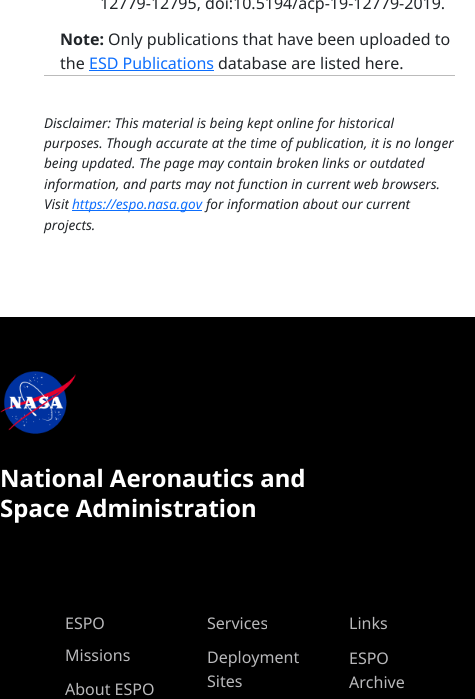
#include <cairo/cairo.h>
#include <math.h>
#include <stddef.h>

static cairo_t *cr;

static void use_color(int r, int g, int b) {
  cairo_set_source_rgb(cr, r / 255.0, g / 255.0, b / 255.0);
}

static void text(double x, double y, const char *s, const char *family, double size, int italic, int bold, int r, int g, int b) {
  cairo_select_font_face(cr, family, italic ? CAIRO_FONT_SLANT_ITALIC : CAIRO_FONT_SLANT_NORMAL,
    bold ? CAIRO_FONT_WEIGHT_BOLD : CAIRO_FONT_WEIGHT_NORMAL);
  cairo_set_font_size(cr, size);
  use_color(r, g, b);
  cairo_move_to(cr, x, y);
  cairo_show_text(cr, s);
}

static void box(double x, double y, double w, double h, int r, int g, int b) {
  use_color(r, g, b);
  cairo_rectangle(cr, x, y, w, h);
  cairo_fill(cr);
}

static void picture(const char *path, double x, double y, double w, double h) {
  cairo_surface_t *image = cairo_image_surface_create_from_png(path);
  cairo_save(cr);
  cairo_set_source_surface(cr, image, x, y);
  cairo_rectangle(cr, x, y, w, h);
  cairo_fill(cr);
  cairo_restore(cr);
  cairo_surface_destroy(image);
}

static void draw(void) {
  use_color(255, 255, 255);
  cairo_paint(cr);
  box(89, 70, 125, 1, 13, 110, 253);
  box(44, 75, 411, 1, 187, 187, 187);
  box(72, 210, 130, 1, 13, 110, 253);
  box(0, 317, 475, 382, 0, 0, 0);
  picture("img_01.png", 0, 371, 76, 63);
  text(100, 9, "12779-12795, doi:10.5194/acp-19-12779-2019.", "Noto Sans", 16, 0, 0, 33, 37, 41);
  text(60, 45, "Note:", "Noto Sans", 16, 0, 1, 33, 37, 41);
  text(108, 45, "Only publications that have been uploaded to", "Noto Sans", 16, 0, 0, 33, 37, 41);
  text(60, 69, "the", "Noto Sans", 16, 0, 0, 33, 37, 41);
  text(89, 69, "ESD Publications", "Noto Sans", 16, 0, 0, 13, 110, 253);
  text(218, 69, "database are listed here.", "Noto Sans", 16, 0, 0, 33, 37, 41);
  text(44, 128, "Disclaimer: This material is being kept online for historical", "Noto Sans", 13.6, 1, 0, 33, 37, 41);
  text(44, 148, "purposes. Though accurate at the time of publication, it is no longer", "Noto Sans", 13.6, 1, 0, 33, 37, 41);
  text(44, 168, "being updated. The page may contain broken links or outdated", "Noto Sans", 13.6, 1, 0, 33, 37, 41);
  text(44, 189, "information, and parts may not function in current web browsers.", "Noto Sans", 13.6, 1, 0, 33, 37, 41);
  text(44, 209, "Visit", "Noto Sans", 13.6, 1, 0, 33, 37, 41);
  text(72, 209, "https://espo.nasa.gov", "Noto Sans", 13.6, 1, 0, 13, 110, 253);
  text(206, 209, "for information about our current", "Noto Sans", 13.6, 1, 0, 33, 37, 41);
  text(44, 230, "projects.", "Noto Sans", 13.6, 1, 0, 33, 37, 41);
  text(0, 487, "National Aeronautics and", "Noto Sans", 24, 0, 1, 255, 255, 255);
  text(0, 517, "Space Administration", "Noto Sans", 24, 0, 1, 255, 255, 255);
  text(207, 629, "Services", "Noto Sans", 16, 0, 0, 185, 185, 187);
  text(349, 629, "Links", "Noto Sans", 16, 0, 0, 185, 185, 187);
  text(65, 661, "Missions", "Noto Sans", 16, 0, 0, 185, 185, 187);
  text(207, 663, "Deployment", "Noto Sans", 16, 0, 0, 185, 185, 187);
  text(207, 687, "Sites", "Noto Sans", 16, 0, 0, 185, 185, 187);
  text(65, 695, "About ESPO", "Noto Sans", 16, 0, 0, 185, 185, 187);
  text(65, 629, "ESPO", "Noto Sans", 16, 0, 0, 185, 185, 187);
  text(349, 664, "ESPO", "Noto Sans", 16, 0, 0, 185, 185, 187);
  text(349, 688, "Archive", "Noto Sans", 16, 0, 0, 185, 185, 187);
}

int main(void) {
  cairo_surface_t *surface = cairo_image_surface_create(CAIRO_FORMAT_RGB24, 475, 699);
  cr = cairo_create(surface);
  cairo_font_options_t *options = cairo_font_options_create();
  cairo_font_options_set_hint_metrics(options, CAIRO_HINT_METRICS_OFF);
  cairo_font_options_set_hint_style(options, CAIRO_HINT_STYLE_NONE);
  cairo_set_font_options(cr, options);
  cairo_set_miter_limit(cr, 4);
  draw();
  cairo_surface_write_to_png(surface, "out.png");
  cairo_font_options_destroy(options);
  cairo_destroy(cr);
  cairo_surface_destroy(surface);
  return 0;
}
